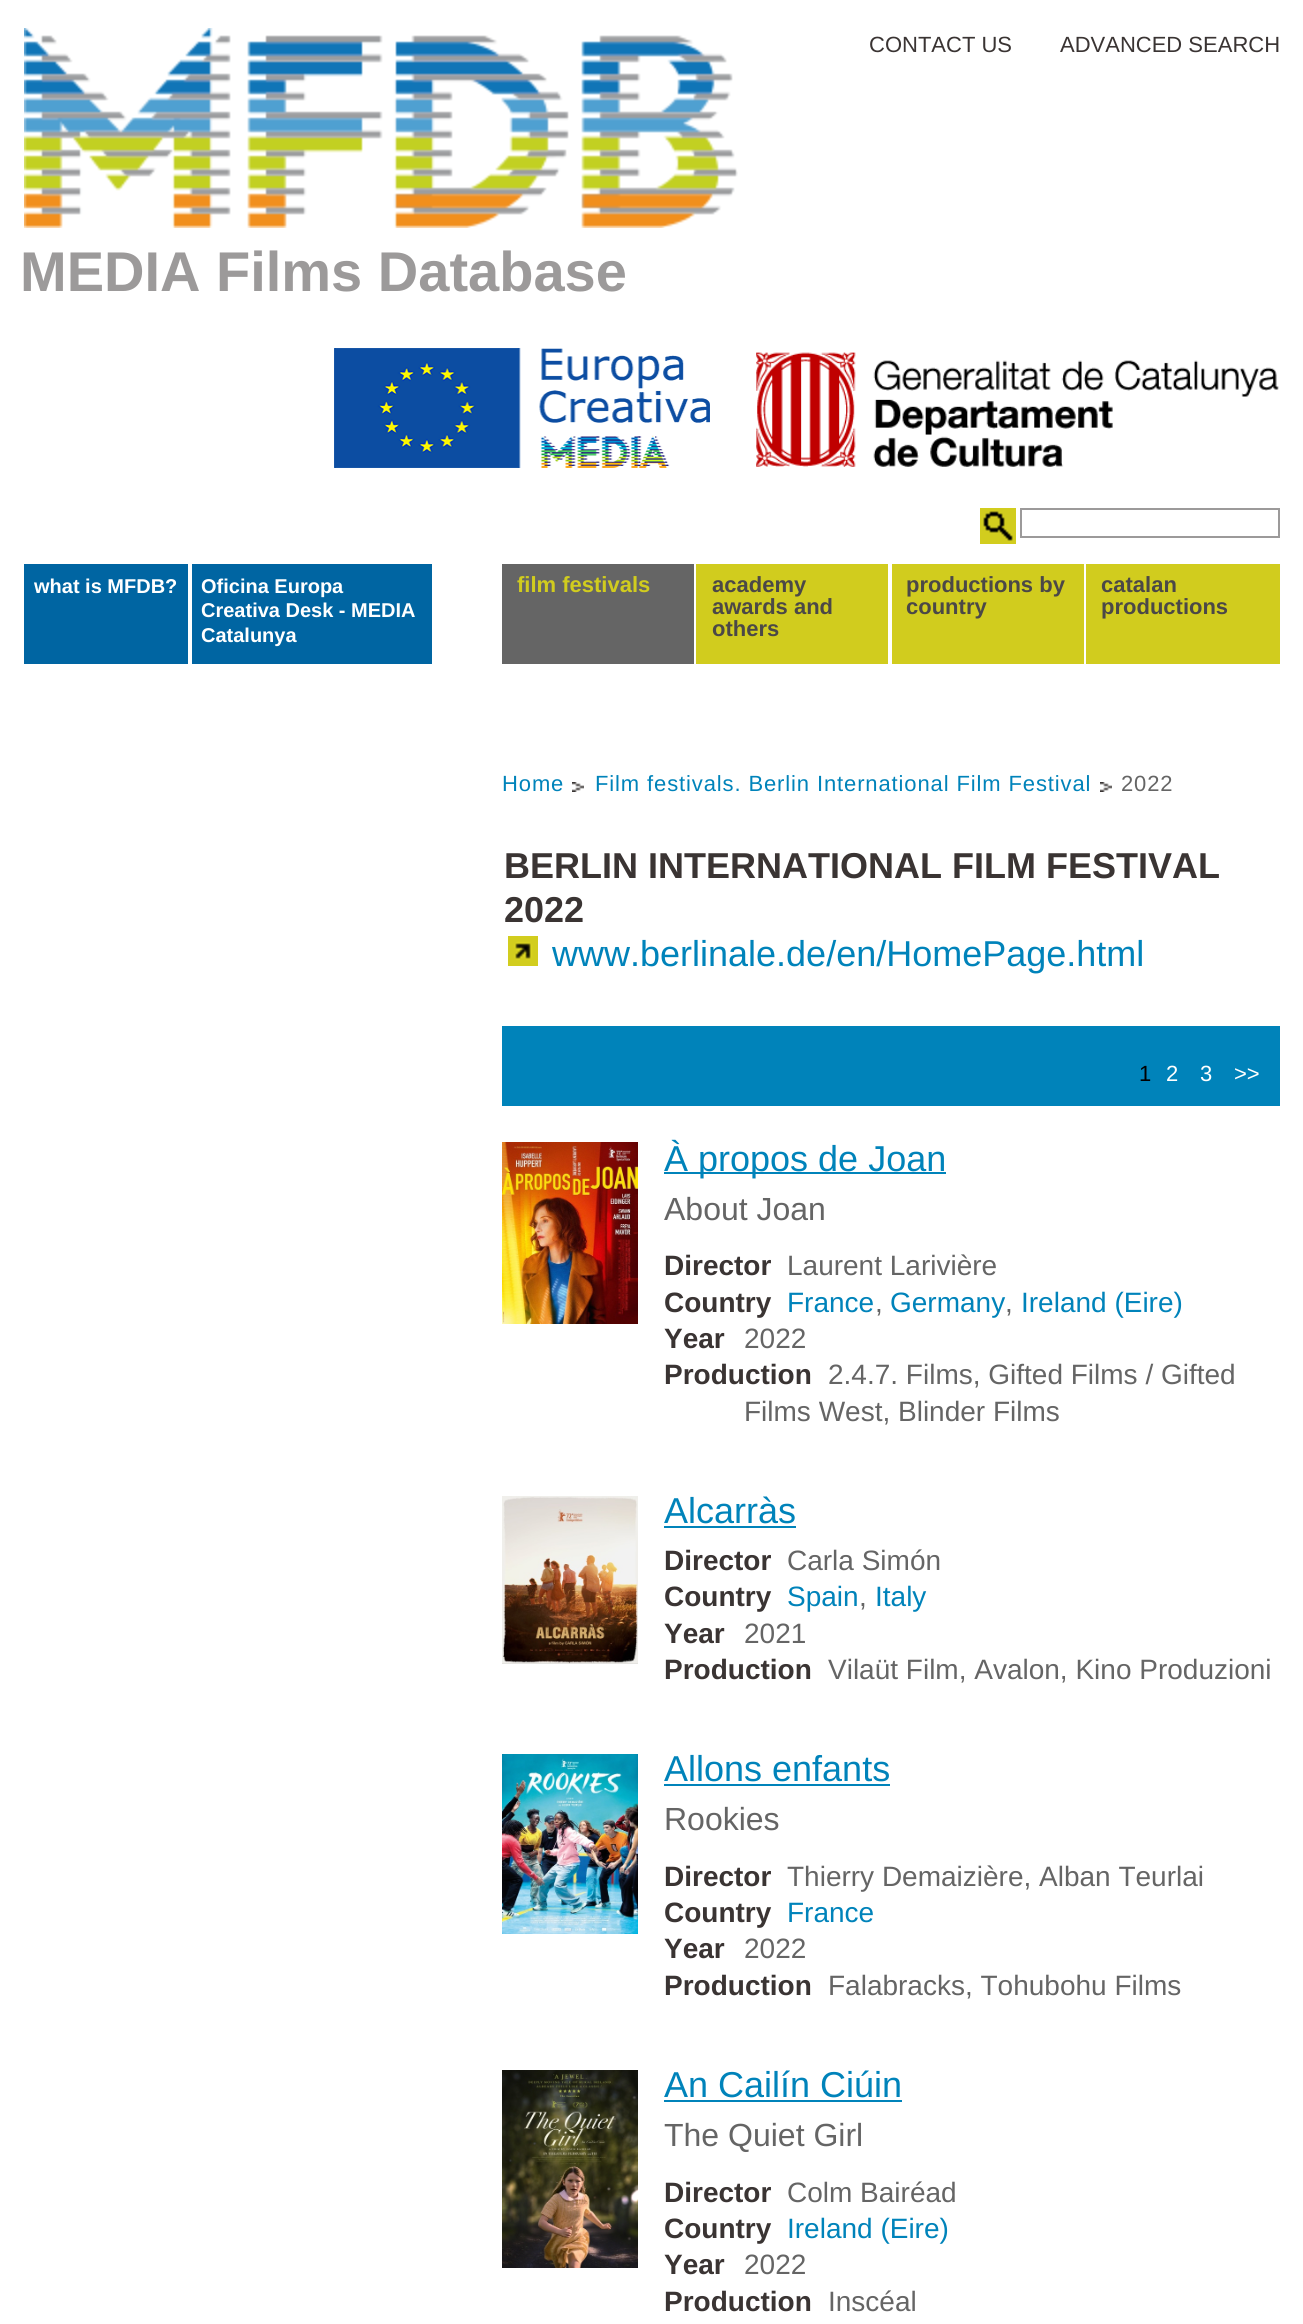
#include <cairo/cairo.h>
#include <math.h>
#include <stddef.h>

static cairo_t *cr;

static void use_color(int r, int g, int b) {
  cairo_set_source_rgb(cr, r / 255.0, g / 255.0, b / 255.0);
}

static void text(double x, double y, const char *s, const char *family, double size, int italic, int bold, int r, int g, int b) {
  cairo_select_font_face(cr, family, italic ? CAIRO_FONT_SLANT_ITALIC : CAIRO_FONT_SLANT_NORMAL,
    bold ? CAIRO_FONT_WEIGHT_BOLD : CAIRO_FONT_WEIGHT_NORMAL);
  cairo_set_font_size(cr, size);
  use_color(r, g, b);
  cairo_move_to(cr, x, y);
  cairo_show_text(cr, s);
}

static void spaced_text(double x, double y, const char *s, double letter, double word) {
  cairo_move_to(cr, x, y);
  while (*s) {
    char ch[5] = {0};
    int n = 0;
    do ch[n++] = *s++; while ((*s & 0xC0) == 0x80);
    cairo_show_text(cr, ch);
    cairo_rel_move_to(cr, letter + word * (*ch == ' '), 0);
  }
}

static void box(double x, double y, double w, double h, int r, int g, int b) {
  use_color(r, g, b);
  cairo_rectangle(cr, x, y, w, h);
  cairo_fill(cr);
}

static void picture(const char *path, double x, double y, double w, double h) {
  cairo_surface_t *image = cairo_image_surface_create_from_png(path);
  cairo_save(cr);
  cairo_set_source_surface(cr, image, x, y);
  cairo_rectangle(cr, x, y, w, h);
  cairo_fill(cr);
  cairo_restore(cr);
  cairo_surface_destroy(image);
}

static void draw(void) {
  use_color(255, 255, 255);
  cairo_paint(cr);
  picture("img_01.png", 24, 28, 714, 200);
  picture("img_02.png", 334, 348, 376, 120);
  picture("img_03.png", 756, 352, 523, 115);
  picture("img_04.png", 980, 508, 36, 36);
  cairo_rectangle(cr, 1021, 509, 258, 28);
  use_color(156, 154, 154);
  cairo_stroke(cr);
  box(24, 564, 164, 100, 0, 101, 162);
  box(192, 564, 240, 100, 0, 101, 162);
  box(502, 564, 192, 100, 101, 101, 101);
  box(696, 564, 192, 100, 209, 204, 30);
  box(892, 564, 192, 100, 209, 204, 30);
  box(1086, 564, 194, 100, 209, 204, 30);
  picture("img_05.png", 572, 782, 12, 10);
  picture("img_05.png", 1100, 782, 12, 10);
  picture("img_06.png", 508, 936, 30, 30);
  box(502, 1026, 778, 80, 0, 131, 186);
  picture("img_07.png", 502, 1142, 136, 182);
  box(664, 1172, 282, 2, 0, 131, 186);
  picture("img_08.png", 502, 1496, 136, 168);
  box(664, 1526, 132, 2, 0, 131, 186);
  picture("img_09.png", 502, 1754, 136, 180);
  box(664, 1784, 226, 2, 0, 131, 186);
  picture("img_10.png", 502, 2070, 136, 198);
  box(664, 2100, 238, 2, 0, 131, 186);
  text(869, 52, "CONTACT US", "Liberation Sans", 22, 0, 0, 58, 52, 51);
  text(1060, 52, "ADVANCED SEARCH", "Liberation Sans", 22, 0, 0, 58, 52, 51);
  text(20, 291, "MEDIA Films Database", "Liberation Sans", 56, 0, 1, 156, 154, 154);
  text(34, 593, "what is MFDB?", "Liberation Sans", 20, 0, 1, 255, 255, 255);
  text(201, 593, "Oficina Europa", "Liberation Sans", 20, 0, 1, 255, 255, 255);
  text(201, 617, "Creativa Desk - MEDIA", "Liberation Sans", 20, 0, 1, 255, 255, 255);
  text(201, 642, "Catalunya", "Liberation Sans", 20, 0, 1, 255, 255, 255);
  text(517, 592, "film festivals", "Liberation Sans", 22, 0, 1, 209, 204, 30);
  text(712, 592, "academy", "Liberation Sans", 22, 0, 1, 75, 72, 71);
  text(712, 614, "awards and", "Liberation Sans", 22, 0, 1, 75, 72, 71);
  text(712, 636, "others", "Liberation Sans", 22, 0, 1, 75, 72, 71);
  text(906, 592, "productions by", "Liberation Sans", 22, 0, 1, 75, 72, 71);
  text(906, 614, "country", "Liberation Sans", 22, 0, 1, 75, 72, 71);
  text(1101, 592, "catalan", "Liberation Sans", 22, 0, 1, 75, 72, 71);
  text(1101, 614, "productions", "Liberation Sans", 22, 0, 1, 75, 72, 71);
  cairo_select_font_face(cr, "Liberation Sans", CAIRO_FONT_SLANT_NORMAL, CAIRO_FONT_WEIGHT_NORMAL);
  use_color(0, 131, 186);
  spaced_text(502, 791, "Home", 0.88, 0);
  spaced_text(595, 791, "Film festivals. Berlin International Film Festival", 0.88, 0);
  use_color(101, 101, 101);
  spaced_text(1121, 791, "2022", 0.88, 0);
  text(504, 878, "BERLIN INTERNATIONAL FILM FESTIVAL", "Liberation Sans", 36, 0, 1, 58, 52, 51);
  text(504, 922, "2022", "Liberation Sans", 36, 0, 1, 58, 52, 51);
  text(552, 966, "www.berlinale.de/en/HomePage.html", "Liberation Sans", 36, 0, 0, 0, 131, 186);
  text(1139, 1081, "1", "Liberation Sans", 22, 0, 0, 0, 0, 0);
  text(1166, 1081, "2", "Liberation Sans", 22, 0, 0, 255, 255, 255);
  text(1200, 1081, "3", "Liberation Sans", 22, 0, 0, 255, 255, 255);
  text(1234, 1081, ">>", "Liberation Sans", 22, 0, 0, 255, 255, 255);
  text(664, 1171, "À propos de Joan", "Liberation Sans", 36, 0, 0, 0, 131, 186);
  text(664, 1220, "About Joan", "Liberation Sans", 32, 0, 0, 101, 101, 101);
  text(664, 1275, "Director", "Liberation Sans", 28, 0, 1, 58, 52, 51);
  text(787, 1275, "Laurent Larivière", "Liberation Sans", 28, 0, 0, 101, 101, 101);
  text(664, 1312, "Country", "Liberation Sans", 28, 0, 1, 58, 52, 51);
  text(787, 1312, "France", "Liberation Sans", 28, 0, 0, 0, 131, 186);
  text(875, 1312, ",", "Liberation Sans", 28, 0, 0, 101, 101, 101);
  text(890, 1312, "Germany", "Liberation Sans", 28, 0, 0, 0, 131, 186);
  text(1005, 1312, ",", "Liberation Sans", 28, 0, 0, 101, 101, 101);
  text(1021, 1312, "Ireland (Eire)", "Liberation Sans", 28, 0, 0, 0, 131, 186);
  text(664, 1348, "Year", "Liberation Sans", 28, 0, 1, 58, 52, 51);
  text(744, 1348, "2022", "Liberation Sans", 28, 0, 0, 101, 101, 101);
  text(664, 1384, "Production", "Liberation Sans", 28, 0, 1, 58, 52, 51);
  text(828, 1384, "2.4.7. Films, Gifted Films / Gifted", "Liberation Sans", 28, 0, 0, 101, 101, 101);
  text(744, 1421, "Films West, Blinder Films", "Liberation Sans", 28, 0, 0, 101, 101, 101);
  text(664, 1523, "Alcarràs", "Liberation Sans", 36, 0, 0, 0, 131, 186);
  text(664, 1570, "Director", "Liberation Sans", 28, 0, 1, 58, 52, 51);
  text(787, 1570, "Carla Simón", "Liberation Sans", 28, 0, 0, 101, 101, 101);
  text(664, 1606, "Country", "Liberation Sans", 28, 0, 1, 58, 52, 51);
  text(787, 1606, "Spain", "Liberation Sans", 28, 0, 0, 0, 131, 186);
  text(859, 1606, ",", "Liberation Sans", 28, 0, 0, 101, 101, 101);
  text(875, 1606, "Italy", "Liberation Sans", 28, 0, 0, 0, 131, 186);
  text(664, 1643, "Year", "Liberation Sans", 28, 0, 1, 58, 52, 51);
  text(744, 1643, "2021", "Liberation Sans", 28, 0, 0, 101, 101, 101);
  text(664, 1679, "Production", "Liberation Sans", 28, 0, 1, 58, 52, 51);
  text(828, 1679, "Vilaüt Film, Avalon, Kino Produzioni", "Liberation Sans", 28, 0, 0, 101, 101, 101);
  text(664, 1781, "Allons enfants", "Liberation Sans", 36, 0, 0, 0, 131, 186);
  text(664, 1830, "Rookies", "Liberation Sans", 32, 0, 0, 101, 101, 101);
  text(664, 1886, "Director", "Liberation Sans", 28, 0, 1, 58, 52, 51);
  text(787, 1886, "Thierry Demaizière, Alban Teurlai", "Liberation Sans", 28, 0, 0, 101, 101, 101);
  text(664, 1922, "Country", "Liberation Sans", 28, 0, 1, 58, 52, 51);
  text(787, 1922, "France", "Liberation Sans", 28, 0, 0, 0, 131, 186);
  text(664, 1958, "Year", "Liberation Sans", 28, 0, 1, 58, 52, 51);
  text(744, 1958, "2022", "Liberation Sans", 28, 0, 0, 101, 101, 101);
  text(664, 1995, "Production", "Liberation Sans", 28, 0, 1, 58, 52, 51);
  text(828, 1995, "Falabracks, Tohubohu Films", "Liberation Sans", 28, 0, 0, 101, 101, 101);
  text(664, 2097, "An Cailín Ciúin", "Liberation Sans", 36, 0, 0, 0, 131, 186);
  text(664, 2146, "The Quiet Girl", "Liberation Sans", 32, 0, 0, 101, 101, 101);
  text(664, 2202, "Director", "Liberation Sans", 28, 0, 1, 58, 52, 51);
  text(787, 2202, "Colm Bairéad", "Liberation Sans", 28, 0, 0, 101, 101, 101);
  text(664, 2238, "Country", "Liberation Sans", 28, 0, 1, 58, 52, 51);
  text(787, 2238, "Ireland (Eire)", "Liberation Sans", 28, 0, 0, 0, 131, 186);
  text(664, 2274, "Year", "Liberation Sans", 28, 0, 1, 58, 52, 51);
  text(744, 2274, "2022", "Liberation Sans", 28, 0, 0, 101, 101, 101);
  text(664, 2311, "Production", "Liberation Sans", 28, 0, 1, 58, 52, 51);
  text(828, 2311, "Inscéal", "Liberation Sans", 28, 0, 0, 101, 101, 101);
}

int main(void) {
  cairo_surface_t *surface = cairo_image_surface_create(CAIRO_FORMAT_RGB24, 1303, 2324);
  cr = cairo_create(surface);
  cairo_font_options_t *options = cairo_font_options_create();
  cairo_font_options_set_hint_metrics(options, CAIRO_HINT_METRICS_OFF);
  cairo_font_options_set_hint_style(options, CAIRO_HINT_STYLE_NONE);
  cairo_set_font_options(cr, options);
  cairo_set_miter_limit(cr, 4);
  draw();
  cairo_surface_write_to_png(surface, "out.png");
  cairo_font_options_destroy(options);
  cairo_destroy(cr);
  cairo_surface_destroy(surface);
  return 0;
}
